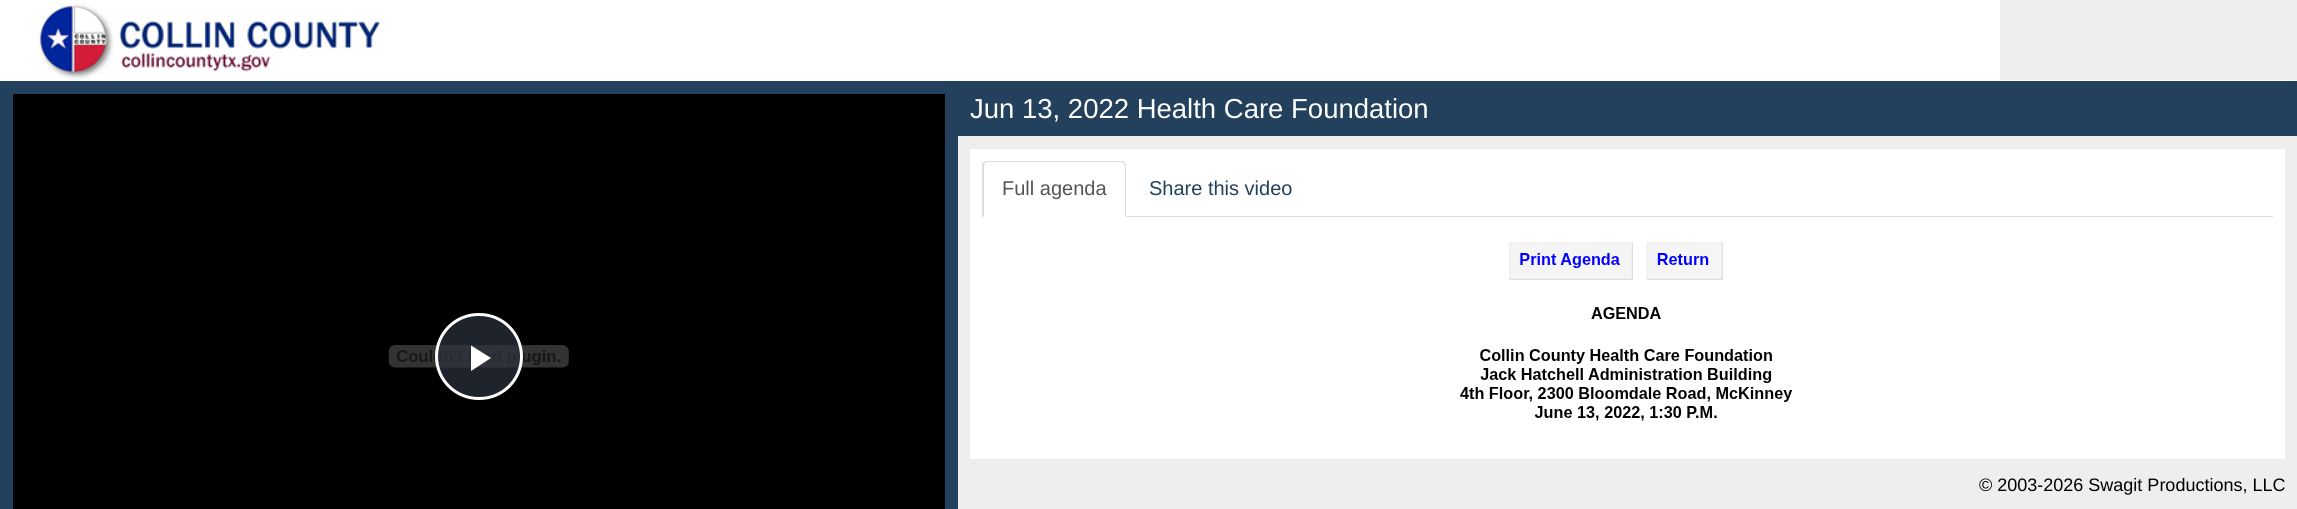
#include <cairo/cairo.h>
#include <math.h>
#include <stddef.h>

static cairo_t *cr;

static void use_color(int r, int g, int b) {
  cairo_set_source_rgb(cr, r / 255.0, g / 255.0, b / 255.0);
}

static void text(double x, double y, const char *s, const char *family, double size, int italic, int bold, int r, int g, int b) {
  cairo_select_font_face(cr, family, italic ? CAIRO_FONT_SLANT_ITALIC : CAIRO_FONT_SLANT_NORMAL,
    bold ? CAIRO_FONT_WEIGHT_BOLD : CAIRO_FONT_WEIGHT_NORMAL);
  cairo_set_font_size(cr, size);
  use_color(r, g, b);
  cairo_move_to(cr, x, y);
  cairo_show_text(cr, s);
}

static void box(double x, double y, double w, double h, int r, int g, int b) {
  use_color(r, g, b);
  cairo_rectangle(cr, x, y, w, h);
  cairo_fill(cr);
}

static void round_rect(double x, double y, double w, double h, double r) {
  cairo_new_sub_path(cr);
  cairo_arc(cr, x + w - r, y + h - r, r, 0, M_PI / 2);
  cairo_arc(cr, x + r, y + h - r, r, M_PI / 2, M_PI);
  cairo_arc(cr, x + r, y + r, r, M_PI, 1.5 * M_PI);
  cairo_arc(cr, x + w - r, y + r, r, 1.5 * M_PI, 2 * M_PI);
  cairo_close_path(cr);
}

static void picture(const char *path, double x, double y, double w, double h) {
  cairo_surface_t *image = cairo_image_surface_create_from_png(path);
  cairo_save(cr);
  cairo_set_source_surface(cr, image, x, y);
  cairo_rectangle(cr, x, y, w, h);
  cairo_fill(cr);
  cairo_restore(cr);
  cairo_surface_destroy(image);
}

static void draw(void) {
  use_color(238, 238, 238);
  cairo_paint(cr);
  box(0, 80, 2297, 1, 255, 255, 255);
  picture("img_01.png", 0, 0, 2000, 80);
  box(0, 81, 958, 428, 35, 64, 93);
  box(13, 94, 932, 415, 0, 0, 0);
  picture("img_02.png", 388, 345, 181, 23);
  cairo_set_source_rgba(cr, 0.169, 0.2, 0.247, 0.7);
  round_rect(436.5, 314.5, 85, 84, 42);
  cairo_fill_preserve(cr);
  use_color(255, 255, 255);
  cairo_set_line_width(cr, 3);
  cairo_stroke(cr);
  cairo_new_path(cr);
  cairo_move_to(cr, 471, 345.5);
  cairo_line_to(cr, 471, 371);
  cairo_line_to(cr, 491, 358);
  cairo_close_path(cr);
  cairo_fill(cr);
  box(958, 81, 1339, 55, 35, 64, 93);
  box(970, 149, 1315, 310, 255, 255, 255);
  box(1126, 216, 1147, 1, 221, 221, 221);
  cairo_new_path(cr);
  cairo_move_to(cr, 988, 162);
  cairo_curve_to(cr, 986, 162, 985, 163, 985, 163);
  cairo_line_to(cr, 984, 162);
  cairo_line_to(cr, 986, 161);
  cairo_line_to(cr, 1123, 161);
  cairo_line_to(cr, 1125, 163);
  cairo_line_to(cr, 1124, 164);
  cairo_curve_to(cr, 1123, 163, 1122, 162, 1121, 162);
  cairo_close_path(cr);
  cairo_fill(cr);
  cairo_new_path(cr);
  cairo_move_to(cr, 1125, 163);
  cairo_curve_to(cr, 1126, 163, 1126, 165, 1126, 166);
  cairo_line_to(cr, 1126, 217);
  cairo_line_to(cr, 1125, 216);
  cairo_line_to(cr, 1125, 166);
  cairo_line_to(cr, 1124, 164);
  cairo_close_path(cr);
  cairo_fill(cr);
  cairo_new_path(cr);
  cairo_move_to(cr, 982, 218);
  cairo_line_to(cr, 982, 164);
  cairo_line_to(cr, 984, 162);
  cairo_line_to(cr, 985, 163);
  cairo_line_to(cr, 984, 166);
  cairo_line_to(cr, 984, 216);
  cairo_close_path(cr);
  cairo_fill(cr);
  picture("img_03.png", 1460, 242, 333, 179);
  text(970, 118, "Jun 13, 2022 Health Care Foundation", "Liberation Sans", 27.5, 0, 0, 255, 255, 255);
  text(1002, 195, "Full agenda", "Liberation Sans", 20, 0, 0, 85, 85, 85);
  text(1149, 195, "Share this video", "Liberation Sans", 20, 0, 0, 35, 64, 93);
  text(1979, 491, "© 2003-2026 Swagit Productions, LLC", "Liberation Sans", 18, 0, 0, 0, 0, 0);
}

int main(void) {
  cairo_surface_t *surface = cairo_image_surface_create(CAIRO_FORMAT_RGB24, 2297, 509);
  cr = cairo_create(surface);
  cairo_font_options_t *options = cairo_font_options_create();
  cairo_font_options_set_hint_metrics(options, CAIRO_HINT_METRICS_OFF);
  cairo_font_options_set_hint_style(options, CAIRO_HINT_STYLE_NONE);
  cairo_set_font_options(cr, options);
  cairo_set_miter_limit(cr, 4);
  draw();
  cairo_surface_write_to_png(surface, "out.png");
  cairo_font_options_destroy(options);
  cairo_destroy(cr);
  cairo_surface_destroy(surface);
  return 0;
}
